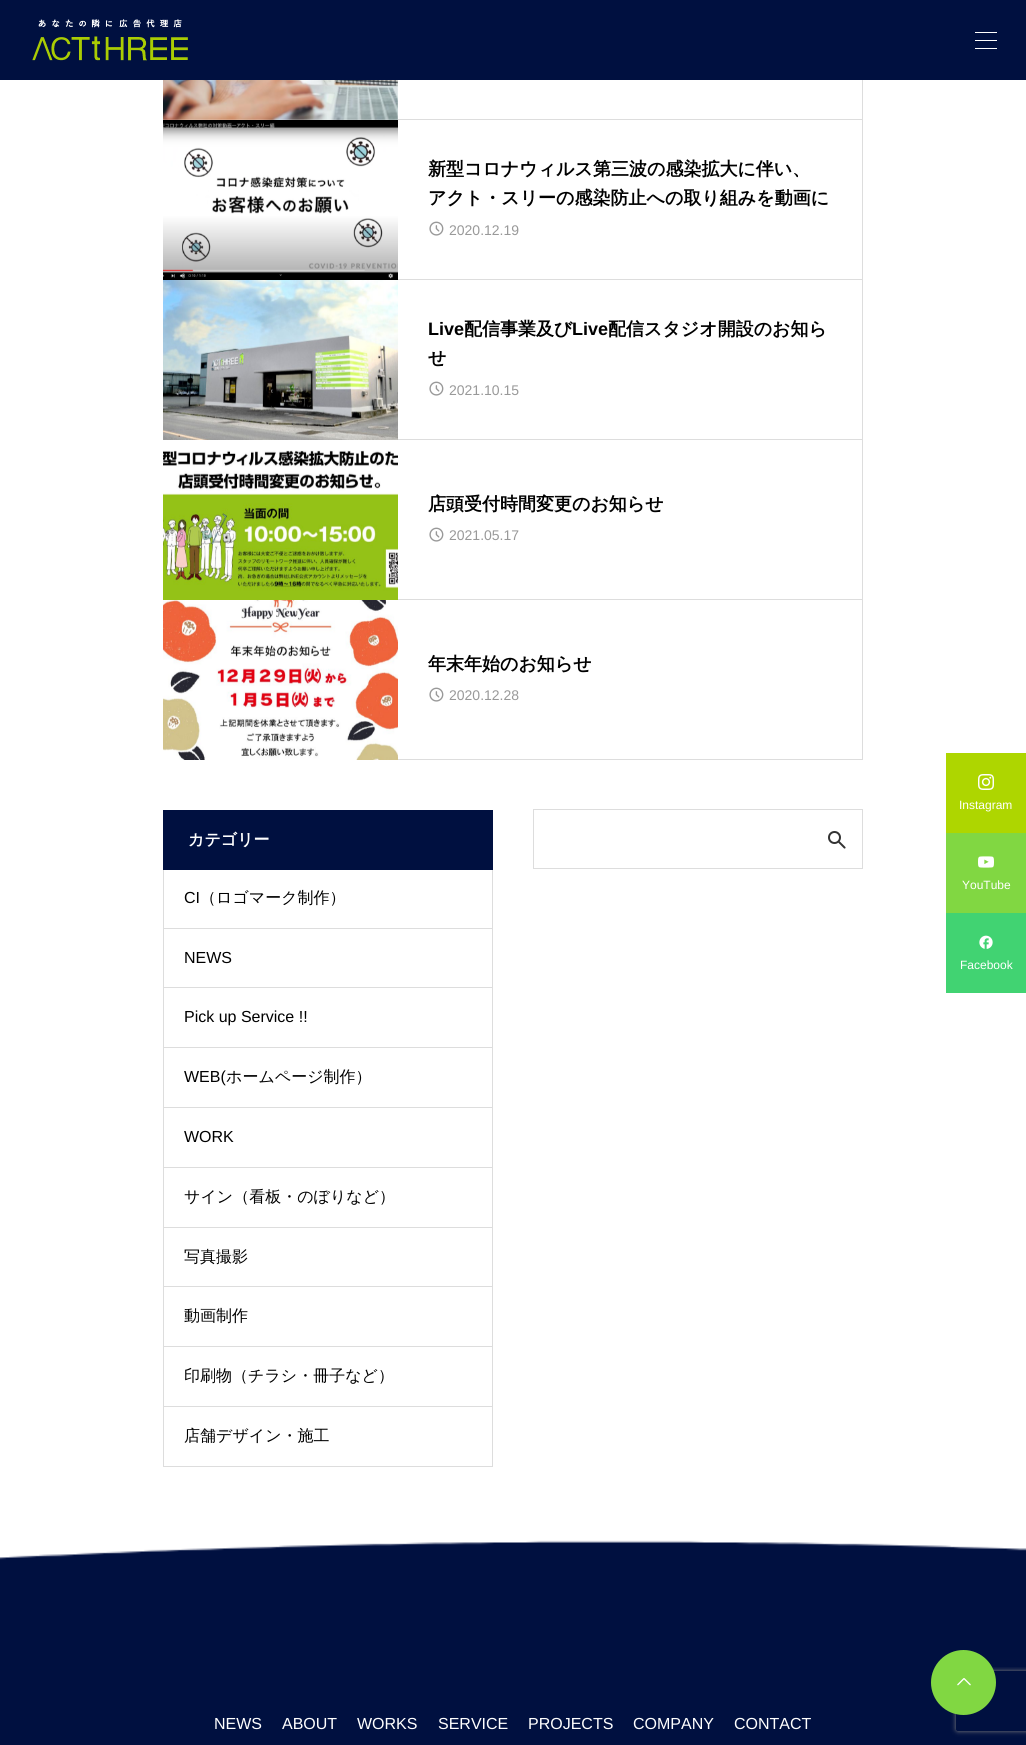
#include <cairo/cairo.h>
#include <math.h>
#include <stddef.h>

static cairo_t *cr;

static void use_color(int r, int g, int b) {
  cairo_set_source_rgb(cr, r / 255.0, g / 255.0, b / 255.0);
}

static void text(double x, double y, const char *s, const char *family, double size, int italic, int bold, int r, int g, int b) {
  cairo_select_font_face(cr, family, italic ? CAIRO_FONT_SLANT_ITALIC : CAIRO_FONT_SLANT_NORMAL,
    bold ? CAIRO_FONT_WEIGHT_BOLD : CAIRO_FONT_WEIGHT_NORMAL);
  cairo_set_font_size(cr, size);
  use_color(r, g, b);
  cairo_move_to(cr, x, y);
  cairo_show_text(cr, s);
}

static void box(double x, double y, double w, double h, int r, int g, int b) {
  use_color(r, g, b);
  cairo_rectangle(cr, x, y, w, h);
  cairo_fill(cr);
}

static void round_rect(double x, double y, double w, double h, double r) {
  cairo_new_sub_path(cr);
  cairo_arc(cr, x + w - r, y + h - r, r, 0, M_PI / 2);
  cairo_arc(cr, x + r, y + h - r, r, M_PI / 2, M_PI);
  cairo_arc(cr, x + r, y + r, r, M_PI, 1.5 * M_PI);
  cairo_arc(cr, x + w - r, y + r, r, 1.5 * M_PI, 2 * M_PI);
  cairo_close_path(cr);
}

static void shadow(double x, double y, double w, double h, double r, double blur, double alpha) {
  cairo_push_group_with_content(cr, CAIRO_CONTENT_ALPHA);
  cairo_set_operator(cr, CAIRO_OPERATOR_SOURCE);
  for (int i = 15; i >= -15 && fmin(w, h) + blur * i / 3 > 0; i -= 2) {
    double e = blur * i / 6;
    cairo_set_source_rgba(cr, 0, 0, 0, alpha * erfc((i - 1) / 8.5) / 2);
    round_rect(x - e, y - e, w + 2 * e, h + 2 * e, fmax(0, fmin(r + e + blur * .6, fmin(w, h) / 2 + e)));
    cairo_fill(cr);
  }
  cairo_pattern_t *soft = cairo_pop_group(cr);
  cairo_mask(cr, soft);
  cairo_pattern_destroy(soft);
}

static void picture(const char *path, double x, double y, double w, double h) {
  cairo_surface_t *image = cairo_image_surface_create_from_png(path);
  cairo_save(cr);
  cairo_set_source_surface(cr, image, x, y);
  cairo_rectangle(cr, x, y, w, h);
  cairo_fill(cr);
  cairo_restore(cr);
  cairo_surface_destroy(image);
}

static void draw(void) {
  use_color(255, 255, 255);
  cairo_paint(cr);
  box(0, 0, 1026, 80, 0, 16, 64);
  picture("img_01.png", 32, 19, 156, 42);
  box(975, 32, 22, 1, 255, 255, 255);
  box(975, 40, 22, 1, 255, 255, 255);
  box(975, 48, 22, 1, 255, 255, 255);
  picture("img_02.png", 163, 80, 235, 40);
  box(862, 80, 1, 680, 221, 221, 221);
  box(398, 119, 465, 1, 221, 221, 221);
  picture("img_03.png", 163, 120, 235, 160);
  box(398, 279, 465, 1, 221, 221, 221);
  picture("img_04.png", 429, 221, 15, 15);
  picture("img_05.png", 163, 280, 235, 160);
  box(398, 439, 465, 1, 221, 221, 221);
  picture("img_04.png", 429, 381, 15, 15);
  picture("img_06.png", 163, 450, 235, 150);
  box(398, 599, 465, 1, 221, 221, 221);
  picture("img_04.png", 429, 527, 15, 15);
  picture("img_07.png", 163, 600, 235, 160);
  box(398, 759, 465, 1, 221, 221, 221);
  picture("img_04.png", 429, 687, 15, 15);
  box(492, 869, 1, 60, 221, 221, 221);
  box(163, 869, 1, 60, 221, 221, 221);
  box(163, 810, 330, 60, 0, 16, 64);
  cairo_rectangle(cr, 163.5, 928.5, 329, 59);
  use_color(221, 221, 221);
  cairo_set_line_width(cr, 1);
  cairo_stroke(cr);
  cairo_rectangle(cr, 163.5, 987.5, 329, 60);
  cairo_stroke(cr);
  cairo_rectangle(cr, 163.5, 1047.5, 329, 60);
  cairo_stroke(cr);
  cairo_rectangle(cr, 163.5, 1107.5, 329, 60);
  cairo_stroke(cr);
  cairo_rectangle(cr, 163.5, 1167.5, 329, 60);
  cairo_stroke(cr);
  cairo_rectangle(cr, 163.5, 1227.5, 329, 59);
  cairo_stroke(cr);
  cairo_rectangle(cr, 163.5, 1286.5, 329, 60);
  cairo_stroke(cr);
  cairo_rectangle(cr, 163.5, 1346.5, 329, 60);
  cairo_stroke(cr);
  cairo_rectangle(cr, 163.5, 1406.5, 329, 60);
  cairo_stroke(cr);
  cairo_rectangle(cr, 533.5, 809.5, 329, 59);
  cairo_stroke(cr);
  picture("img_08.png", 828, 831, 18, 18);
  box(0, 1667, 1026, 78, 0, 16, 64);
  cairo_save(cr);
  cairo_set_fill_rule(cr, CAIRO_FILL_RULE_EVEN_ODD);
  cairo_new_path(cr);
  cairo_move_to(cr, 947, 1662);
  cairo_line_to(cr, 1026, 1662);
  cairo_line_to(cr, 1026, 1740);
  cairo_line_to(cr, 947, 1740);
  cairo_close_path(cr);
  cairo_move_to(cr, 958, 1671);
  cairo_line_to(cr, 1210, 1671);
  cairo_curve_to(cr, 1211, 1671, 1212, 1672, 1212, 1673);
  cairo_line_to(cr, 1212, 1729);
  cairo_curve_to(cr, 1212, 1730, 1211, 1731, 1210, 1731);
  cairo_line_to(cr, 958, 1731);
  cairo_curve_to(cr, 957, 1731, 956, 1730, 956, 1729);
  cairo_line_to(cr, 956, 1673);
  cairo_curve_to(cr, 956, 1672, 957, 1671, 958, 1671);
  cairo_close_path(cr);
  cairo_clip(cr);
  use_color(128, 128, 128);
  shadow(956, 1671, 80, 60, 2, 2.5, 1);
  cairo_restore(cr);
  picture("img_09.png", 0, 1540, 1026, 127);
  box(946, 753, 80, 80, 174, 214, 0);
  picture("img_10.png", 978, 774, 16, 16);
  box(946, 833, 80, 80, 129, 215, 66);
  picture("img_11.png", 978, 856, 16, 12);
  box(946, 913, 80, 80, 65, 211, 114);
  picture("img_12.png", 979, 935, 14, 14);
  use_color(129, 215, 66);
  cairo_arc(cr, 963.5, 1682.5, 32.5, 0, 2 * M_PI);
  cairo_fill(cr);
  picture("img_13.png", 957, 1678, 14, 8);
  text(428, 175, "新型コロナウィルス第三波の感染拡大に伴い、", "WenQuanYi Zen Hei", 18, 0, 1, 0, 0, 0);
  text(428, 204, "アクト・スリーの感染防止への取り組みを動画に", "WenQuanYi Zen Hei", 18, 0, 1, 0, 0, 0);
  text(449, 235, "2020.12.19", "Liberation Sans", 14, 0, 0, 153, 153, 153);
  text(428, 335, "Live", "Liberation Sans", 18, 0, 1, 0, 0, 0);
  text(464, 335, "配信事業及び", "WenQuanYi Zen Hei", 18, 0, 1, 0, 0, 0);
  text(572, 335, "Live", "Liberation Sans", 18, 0, 1, 0, 0, 0);
  text(608, 335, "配信スタジオ開設のお知ら", "WenQuanYi Zen Hei", 18, 0, 1, 0, 0, 0);
  text(428, 364, "せ", "WenQuanYi Zen Hei", 18, 0, 1, 0, 0, 0);
  text(449, 395, "2021.10.15", "Liberation Sans", 14, 0, 0, 153, 153, 153);
  text(428, 510, "店頭受付時間変更のお知らせ", "WenQuanYi Zen Hei", 18, 0, 1, 0, 0, 0);
  text(449, 540, "2021.05.17", "Liberation Sans", 14, 0, 0, 153, 153, 153);
  text(428, 670, "年末年始のお知らせ", "WenQuanYi Zen Hei", 18, 0, 1, 0, 0, 0);
  text(449, 700, "2020.12.28", "Liberation Sans", 14, 0, 0, 153, 153, 153);
  text(188, 845, "カテゴリー", "WenQuanYi Zen Hei", 16, 0, 1, 255, 255, 255);
  text(184, 903, "CI", "Liberation Sans", 16, 0, 0, 0, 0, 0);
  text(200, 903, "（ロゴマーク制作）", "WenQuanYi Zen Hei Medium", 16, 0, 0, 0, 0, 0);
  text(184, 963, "NEWS", "Liberation Sans", 16, 0, 0, 0, 0, 0);
  text(184, 1022, "Pick up Service !!", "Liberation Sans", 16, 0, 0, 0, 0, 0);
  text(184, 1082, "WEB(", "Liberation Sans", 16, 0, 0, 0, 0, 0);
  text(226, 1082, "ホームページ制作）", "WenQuanYi Zen Hei Medium", 16, 0, 0, 0, 0, 0);
  text(184, 1142, "WORK", "Liberation Sans", 16, 0, 0, 0, 0, 0);
  text(184, 1202, "サイン（看板・のぼりなど）", "WenQuanYi Zen Hei Medium", 16, 0, 0, 0, 0, 0);
  text(184, 1262, "写真撮影", "WenQuanYi Zen Hei Medium", 16, 0, 0, 0, 0, 0);
  text(184, 1321, "動画制作", "WenQuanYi Zen Hei Medium", 16, 0, 0, 0, 0, 0);
  text(184, 1381, "印刷物（チラシ・冊子など）", "WenQuanYi Zen Hei Medium", 16, 0, 0, 0, 0, 0);
  text(184, 1441, "店舗デザイン・施工", "WenQuanYi Zen Hei Medium", 16, 0, 0, 0, 0, 0);
  text(214, 1729, "NEWS", "Liberation Sans", 16, 0, 0, 255, 255, 255);
  text(282, 1729, "ABOUT", "Liberation Sans", 16, 0, 0, 255, 255, 255);
  text(357, 1729, "WORKS", "Liberation Sans", 16, 0, 0, 255, 255, 255);
  text(438, 1729, "SERVICE", "Liberation Sans", 16, 0, 0, 255, 255, 255);
  text(528, 1729, "PROJECTS", "Liberation Sans", 16, 0, 0, 255, 255, 255);
  text(633, 1729, "COMPANY", "Liberation Sans", 16, 0, 0, 255, 255, 255);
  text(734, 1729, "CONTACT", "Liberation Sans", 16, 0, 0, 255, 255, 255);
  text(959, 809, "Instagram", "Liberation Sans", 12, 0, 0, 255, 255, 255);
  text(962, 889, "YouTube", "Liberation Sans", 12, 0, 0, 255, 255, 255);
  text(960, 969, "Facebook", "Liberation Sans", 12, 0, 0, 255, 255, 255);
}

int main(void) {
  cairo_surface_t *surface = cairo_image_surface_create(CAIRO_FORMAT_RGB24, 1026, 1745);
  cr = cairo_create(surface);
  cairo_font_options_t *options = cairo_font_options_create();
  cairo_font_options_set_hint_metrics(options, CAIRO_HINT_METRICS_OFF);
  cairo_font_options_set_hint_style(options, CAIRO_HINT_STYLE_NONE);
  cairo_set_font_options(cr, options);
  cairo_set_miter_limit(cr, 4);
  draw();
  cairo_surface_write_to_png(surface, "out.png");
  cairo_font_options_destroy(options);
  cairo_destroy(cr);
  cairo_surface_destroy(surface);
  return 0;
}
